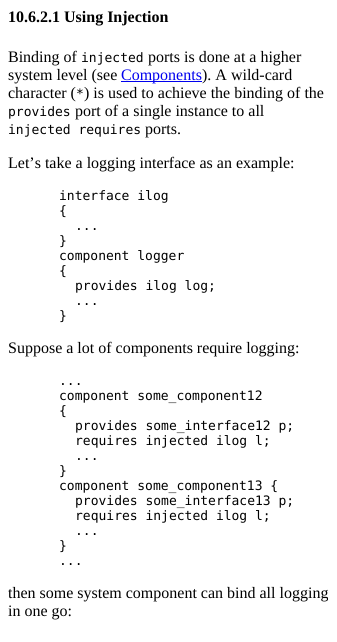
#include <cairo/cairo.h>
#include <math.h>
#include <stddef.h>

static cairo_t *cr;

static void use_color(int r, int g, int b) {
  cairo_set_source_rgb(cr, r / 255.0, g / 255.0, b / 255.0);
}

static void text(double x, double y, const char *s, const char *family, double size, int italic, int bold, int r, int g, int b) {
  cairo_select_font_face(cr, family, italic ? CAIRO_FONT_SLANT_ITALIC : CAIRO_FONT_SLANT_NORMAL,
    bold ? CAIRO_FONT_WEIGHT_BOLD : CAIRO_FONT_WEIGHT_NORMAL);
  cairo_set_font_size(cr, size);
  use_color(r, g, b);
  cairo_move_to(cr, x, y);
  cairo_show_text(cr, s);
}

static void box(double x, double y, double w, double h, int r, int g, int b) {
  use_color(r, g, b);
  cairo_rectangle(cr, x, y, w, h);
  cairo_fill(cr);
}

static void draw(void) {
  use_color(255, 255, 255);
  cairo_paint(cr);
  box(121, 81, 81, 1, 0, 0, 238);
  text(8, 22, "10.6.2.1 Using Injection", "Liberation Serif", 16, 0, 1, 0, 0, 0);
  text(8, 62, "Binding of", "Liberation Serif", 16, 0, 0, 0, 0, 0);
  text(81, 62, "injected", "DejaVu Sans Mono", 13, 0, 0, 0, 0, 0);
  text(148, 62, "ports is done at a higher", "Liberation Serif", 16, 0, 0, 0, 0, 0);
  text(8, 80, "system level (see", "Liberation Serif", 16, 0, 0, 0, 0, 0);
  text(121, 80, "Components", "Liberation Serif", 16, 0, 0, 0, 0, 238);
  text(202, 80, "). A wild-card", "Liberation Serif", 16, 0, 0, 0, 0, 0);
  text(8, 98, "character (", "Liberation Serif", 16, 0, 0, 0, 0, 0);
  text(76, 98, "*", "DejaVu Sans Mono", 13, 0, 0, 0, 0, 0);
  text(84, 98, ") is used to achieve the binding of the", "Liberation Serif", 16, 0, 0, 0, 0, 0);
  text(8, 116, "provides", "DejaVu Sans Mono", 13, 0, 0, 0, 0, 0);
  text(75, 116, "port of a single instance to all", "Liberation Serif", 16, 0, 0, 0, 0, 0);
  text(8, 134, "injected requires", "DejaVu Sans Mono", 13, 0, 0, 0, 0, 0);
  text(145, 134, "ports.", "Liberation Serif", 16, 0, 0, 0, 0, 0);
  text(8, 168, "Let’s take a logging interface as an example:", "Liberation Serif", 16, 0, 0, 0, 0, 0);
  text(59, 200, "interface ilog", "DejaVu Sans Mono", 13, 0, 0, 0, 0, 0);
  text(59, 215, "{", "DejaVu Sans Mono", 13, 0, 0, 0, 0, 0);
  text(75, 230, "...", "DejaVu Sans Mono", 13, 0, 0, 0, 0, 0);
  text(59, 245, "}", "DejaVu Sans Mono", 13, 0, 0, 0, 0, 0);
  text(59, 260, "component logger", "DejaVu Sans Mono", 13, 0, 0, 0, 0, 0);
  text(59, 275, "{", "DejaVu Sans Mono", 13, 0, 0, 0, 0, 0);
  text(75, 290, "provides ilog log;", "DejaVu Sans Mono", 13, 0, 0, 0, 0, 0);
  text(75, 305, "...", "DejaVu Sans Mono", 13, 0, 0, 0, 0, 0);
  text(59, 320, "}", "DejaVu Sans Mono", 13, 0, 0, 0, 0, 0);
  text(8, 353, "Suppose a lot of components require logging:", "Liberation Serif", 16, 0, 0, 0, 0, 0);
  text(59, 385, "...", "DejaVu Sans Mono", 13, 0, 0, 0, 0, 0);
  text(59, 400, "component some_component12", "DejaVu Sans Mono", 13, 0, 0, 0, 0, 0);
  text(59, 415, "{", "DejaVu Sans Mono", 13, 0, 0, 0, 0, 0);
  text(75, 430, "provides some_interface12 p;", "DejaVu Sans Mono", 13, 0, 0, 0, 0, 0);
  text(75, 445, "requires injected ilog l;", "DejaVu Sans Mono", 13, 0, 0, 0, 0, 0);
  text(75, 460, "...", "DejaVu Sans Mono", 13, 0, 0, 0, 0, 0);
  text(59, 475, "}", "DejaVu Sans Mono", 13, 0, 0, 0, 0, 0);
  text(59, 490, "component some_component13 {", "DejaVu Sans Mono", 13, 0, 0, 0, 0, 0);
  text(75, 505, "provides some_interface13 p;", "DejaVu Sans Mono", 13, 0, 0, 0, 0, 0);
  text(75, 520, "requires injected ilog l;", "DejaVu Sans Mono", 13, 0, 0, 0, 0, 0);
  text(75, 535, "...", "DejaVu Sans Mono", 13, 0, 0, 0, 0, 0);
  text(59, 550, "}", "DejaVu Sans Mono", 13, 0, 0, 0, 0, 0);
  text(59, 565, "...", "DejaVu Sans Mono", 13, 0, 0, 0, 0, 0);
  text(8, 598, "then some system component can bind all logging", "Liberation Serif", 16, 0, 0, 0, 0, 0);
  text(8, 616, "in one go:", "Liberation Serif", 16, 0, 0, 0, 0, 0);
}

int main(void) {
  cairo_surface_t *surface = cairo_image_surface_create(CAIRO_FORMAT_RGB24, 337, 642);
  cr = cairo_create(surface);
  cairo_font_options_t *options = cairo_font_options_create();
  cairo_font_options_set_hint_metrics(options, CAIRO_HINT_METRICS_OFF);
  cairo_font_options_set_hint_style(options, CAIRO_HINT_STYLE_NONE);
  cairo_set_font_options(cr, options);
  cairo_set_miter_limit(cr, 4);
  draw();
  cairo_surface_write_to_png(surface, "out.png");
  cairo_font_options_destroy(options);
  cairo_destroy(cr);
  cairo_surface_destroy(surface);
  return 0;
}
